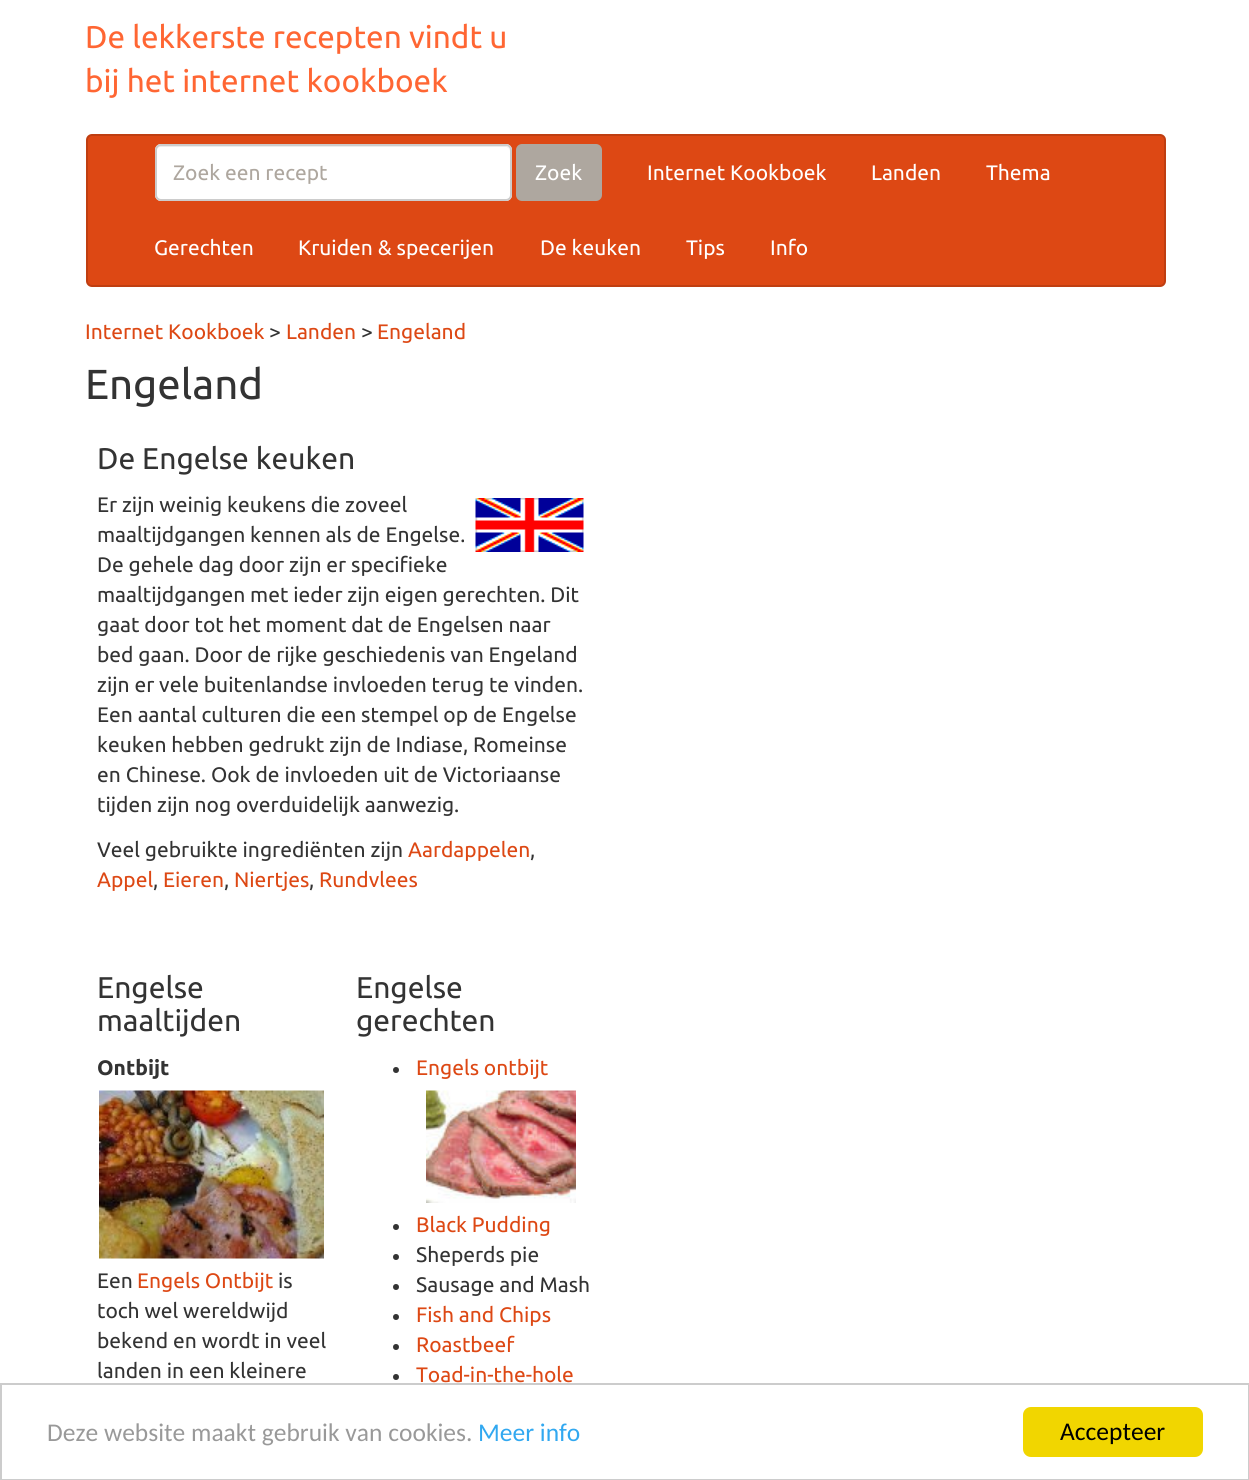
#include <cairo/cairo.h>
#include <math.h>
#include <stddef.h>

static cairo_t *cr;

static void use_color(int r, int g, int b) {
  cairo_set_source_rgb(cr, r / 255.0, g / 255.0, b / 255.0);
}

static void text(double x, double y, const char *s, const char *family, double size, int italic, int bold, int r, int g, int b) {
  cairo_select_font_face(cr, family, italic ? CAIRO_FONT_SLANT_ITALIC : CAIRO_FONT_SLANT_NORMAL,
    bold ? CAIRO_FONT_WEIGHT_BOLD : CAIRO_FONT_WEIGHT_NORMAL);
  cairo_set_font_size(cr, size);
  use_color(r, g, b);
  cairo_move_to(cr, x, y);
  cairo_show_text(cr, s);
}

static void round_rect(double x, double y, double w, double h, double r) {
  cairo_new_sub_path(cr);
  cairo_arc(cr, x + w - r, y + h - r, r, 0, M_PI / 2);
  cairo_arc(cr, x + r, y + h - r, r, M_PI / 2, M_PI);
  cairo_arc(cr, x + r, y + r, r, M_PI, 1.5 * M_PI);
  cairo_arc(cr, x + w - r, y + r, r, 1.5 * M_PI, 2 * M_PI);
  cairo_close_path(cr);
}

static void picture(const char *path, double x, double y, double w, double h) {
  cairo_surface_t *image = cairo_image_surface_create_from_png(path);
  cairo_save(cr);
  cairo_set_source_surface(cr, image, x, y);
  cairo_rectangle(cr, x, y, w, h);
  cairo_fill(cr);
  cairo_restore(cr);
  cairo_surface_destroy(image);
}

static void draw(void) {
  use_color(255, 255, 255);
  cairo_paint(cr);
  use_color(221, 72, 20);
  round_rect(87, 135, 1078, 151, 5);
  cairo_fill_preserve(cr);
  use_color(191, 62, 17);
  cairo_stroke(cr);
  use_color(255, 255, 255);
  round_rect(155, 144, 357, 57, 6);
  cairo_fill(cr);
  use_color(236, 236, 236);
  cairo_new_path(cr);
  cairo_move_to(cr, 160, 147);
  cairo_line_to(cr, 506, 147);
  cairo_curve_to(cr, 508, 147, 510, 149, 510, 152);
  cairo_line_to(cr, 510, 151);
  cairo_curve_to(cr, 510, 148, 508, 146, 505, 146);
  cairo_line_to(cr, 161, 146);
  cairo_curve_to(cr, 158, 146, 156, 148, 156, 151);
  cairo_line_to(cr, 156, 152);
  cairo_curve_to(cr, 156, 149, 158, 147, 160, 147);
  cairo_close_path(cr);
  cairo_fill(cr);
  round_rect(156, 145, 355, 55, 5);
  use_color(204, 204, 204);
  cairo_stroke(cr);
  use_color(174, 167, 159);
  round_rect(517, 145, 84, 55, 5);
  cairo_fill_preserve(cr);
  cairo_stroke(cr);
  picture("img_01.png", 475, 498, 109, 54);
  picture("img_02.png", 99, 1090, 225, 169);
  use_color(51, 51, 51);
  cairo_arc(cr, 396, 1070, 3, 0, 2 * M_PI);
  cairo_fill(cr);
  picture("img_03.png", 426, 1090, 150, 113);
  cairo_arc(cr, 396, 1227, 3, 0, 2 * M_PI);
  cairo_fill(cr);
  cairo_arc(cr, 396, 1257, 3, 0, 2 * M_PI);
  cairo_fill(cr);
  cairo_arc(cr, 396, 1287, 3, 0, 2 * M_PI);
  cairo_fill(cr);
  cairo_arc(cr, 396, 1317, 3, 0, 2 * M_PI);
  cairo_fill(cr);
  cairo_arc(cr, 396, 1347, 3, 0, 2 * M_PI);
  cairo_fill(cr);
  cairo_arc(cr, 396, 1377, 3, 0, 2 * M_PI);
  cairo_fill(cr);
  cairo_rectangle(cr, 1, 1384, 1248, 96);
  use_color(204, 204, 204);
  cairo_stroke(cr);
  use_color(241, 214, 0);
  round_rect(1023, 1407, 180, 50, 8);
  cairo_fill(cr);
  text(85, 48, "De lekkerste recepten vindt u", "Ubuntu", 31.5, 0, 0, 255, 102, 51);
  text(85, 92, "bij het internet kookboek", "Ubuntu", 31.5, 0, 0, 255, 102, 51);
  text(173, 180, "Zoek een recept", "Ubuntu", 21, 0, 0, 174, 167, 159);
  text(535, 180, "Zoek", "Ubuntu", 21, 0, 0, 255, 255, 255);
  text(647, 180, "Internet Kookboek", "Ubuntu", 21, 0, 0, 255, 255, 255);
  text(871, 180, "Landen", "Ubuntu", 21, 0, 0, 255, 255, 255);
  text(986, 180, "Thema", "Ubuntu", 21, 0, 0, 255, 255, 255);
  text(154, 255, "Gerechten", "Ubuntu", 21, 0, 0, 255, 255, 255);
  text(298, 255, "Kruiden & specerijen", "Ubuntu", 21, 0, 0, 255, 255, 255);
  text(540, 255, "De keuken", "Ubuntu", 21, 0, 0, 255, 255, 255);
  text(686, 255, "Tips", "Ubuntu", 21, 0, 0, 255, 255, 255);
  text(770, 255, "Info", "Ubuntu", 21, 0, 0, 255, 255, 255);
  text(85, 339, "Internet Kookboek", "Ubuntu", 21, 0, 0, 221, 72, 20);
  text(269, 339, ">", "Ubuntu", 21, 0, 0, 51, 51, 51);
  text(286, 339, "Landen", "Ubuntu", 21, 0, 0, 221, 72, 20);
  text(361, 339, ">", "Ubuntu", 21, 0, 0, 51, 51, 51);
  text(377, 339, "Engeland", "Ubuntu", 21, 0, 0, 221, 72, 20);
  text(85, 399, "Engeland", "Ubuntu", 42, 0, 0, 51, 51, 51);
  text(97, 469, "De Engelse keuken", "Ubuntu", 30, 0, 0, 51, 51, 51);
  text(97, 512, "Er zijn weinig keukens die zoveel", "Ubuntu", 21, 0, 0, 51, 51, 51);
  text(97, 542, "maaltijdgangen kennen als de Engelse.", "Ubuntu", 21, 0, 0, 51, 51, 51);
  text(97, 572, "De gehele dag door zijn er specifieke", "Ubuntu", 21, 0, 0, 51, 51, 51);
  text(97, 602, "maaltijdgangen met ieder zijn eigen gerechten. Dit", "Ubuntu", 21, 0, 0, 51, 51, 51);
  text(97, 632, "gaat door tot het moment dat de Engelsen naar", "Ubuntu", 21, 0, 0, 51, 51, 51);
  text(97, 662, "bed gaan. Door de rijke geschiedenis van Engeland", "Ubuntu", 21, 0, 0, 51, 51, 51);
  text(97, 692, "zijn er vele buitenlandse invloeden terug te vinden.", "Ubuntu", 21, 0, 0, 51, 51, 51);
  text(97, 722, "Een aantal culturen die een stempel op de Engelse", "Ubuntu", 21, 0, 0, 51, 51, 51);
  text(97, 752, "keuken hebben gedrukt zijn de Indiase, Romeinse", "Ubuntu", 21, 0, 0, 51, 51, 51);
  text(97, 782, "en Chinese. Ook de invloeden uit de Victoriaanse", "Ubuntu", 21, 0, 0, 51, 51, 51);
  text(97, 812, "tijden zijn nog overduidelijk aanwezig.", "Ubuntu", 21, 0, 0, 51, 51, 51);
  text(97, 857, "Veel gebruikte ingrediënten zijn", "Ubuntu", 21, 0, 0, 51, 51, 51);
  text(408, 857, "Aardappelen", "Ubuntu", 21, 0, 0, 221, 72, 20);
  text(530, 857, ",", "Ubuntu", 21, 0, 0, 51, 51, 51);
  text(97, 887, "Appel", "Ubuntu", 21, 0, 0, 221, 72, 20);
  text(153, 887, ",", "Ubuntu", 21, 0, 0, 51, 51, 51);
  text(163, 887, "Eieren", "Ubuntu", 21, 0, 0, 221, 72, 20);
  text(224, 887, ",", "Ubuntu", 21, 0, 0, 51, 51, 51);
  text(234, 887, "Niertjes", "Ubuntu", 21, 0, 0, 221, 72, 20);
  text(309, 887, ",", "Ubuntu", 21, 0, 0, 51, 51, 51);
  text(319, 887, "Rundvlees", "Ubuntu", 21, 0, 0, 221, 72, 20);
  text(97, 998, "Engelse", "Ubuntu", 30, 0, 0, 51, 51, 51);
  text(97, 1031, "maaltijden", "Ubuntu", 30, 0, 0, 51, 51, 51);
  text(97, 1075, "Ontbijt", "Ubuntu", 21, 0, 1, 51, 51, 51);
  text(97, 1288, "Een", "Ubuntu", 21, 0, 0, 51, 51, 51);
  text(137, 1288, "Engels Ontbijt", "Ubuntu", 21, 0, 0, 221, 72, 20);
  text(278, 1288, "is", "Ubuntu", 21, 0, 0, 51, 51, 51);
  text(97, 1318, "toch wel wereldwijd", "Ubuntu", 21, 0, 0, 51, 51, 51);
  text(97, 1348, "bekend en wordt in veel", "Ubuntu", 21, 0, 0, 51, 51, 51);
  text(97, 1378, "landen in een kleinere", "Ubuntu", 21, 0, 0, 51, 51, 51);
  text(356, 998, "Engelse", "Ubuntu", 30, 0, 0, 51, 51, 51);
  text(356, 1031, "gerechten", "Ubuntu", 30, 0, 0, 51, 51, 51);
  text(416, 1075, "Engels ontbijt", "Ubuntu", 21, 0, 0, 221, 72, 20);
  text(416, 1232, "Black Pudding", "Ubuntu", 21, 0, 0, 221, 72, 20);
  text(416, 1262, "Sheperds pie", "Ubuntu", 21, 0, 0, 51, 51, 51);
  text(416, 1292, "Sausage and Mash", "Ubuntu", 21, 0, 0, 51, 51, 51);
  text(416, 1322, "Fish and Chips", "Ubuntu", 21, 0, 0, 221, 72, 20);
  text(416, 1352, "Roastbeef", "Ubuntu", 21, 0, 0, 221, 72, 20);
  text(416, 1382, "Toad-in-the-hole", "Ubuntu", 21, 0, 0, 221, 72, 20);
  text(47, 1441, "Deze website maakt gebruik van cookies.", "Carlito", 25.5, 0, 0, 153, 153, 153);
  text(478, 1441, "Meer info", "Carlito", 25.5, 0, 0, 49, 168, 240);
  text(1060, 1440, "Accepteer", "Carlito", 25.5, 0, 0, 0, 0, 0);
}

int main(void) {
  cairo_surface_t *surface = cairo_image_surface_create(CAIRO_FORMAT_RGB24, 1249, 1480);
  cr = cairo_create(surface);
  cairo_font_options_t *options = cairo_font_options_create();
  cairo_font_options_set_hint_metrics(options, CAIRO_HINT_METRICS_OFF);
  cairo_font_options_set_hint_style(options, CAIRO_HINT_STYLE_NONE);
  cairo_set_font_options(cr, options);
  cairo_set_miter_limit(cr, 4);
  draw();
  cairo_surface_write_to_png(surface, "out.png");
  cairo_font_options_destroy(options);
  cairo_destroy(cr);
  cairo_surface_destroy(surface);
  return 0;
}
